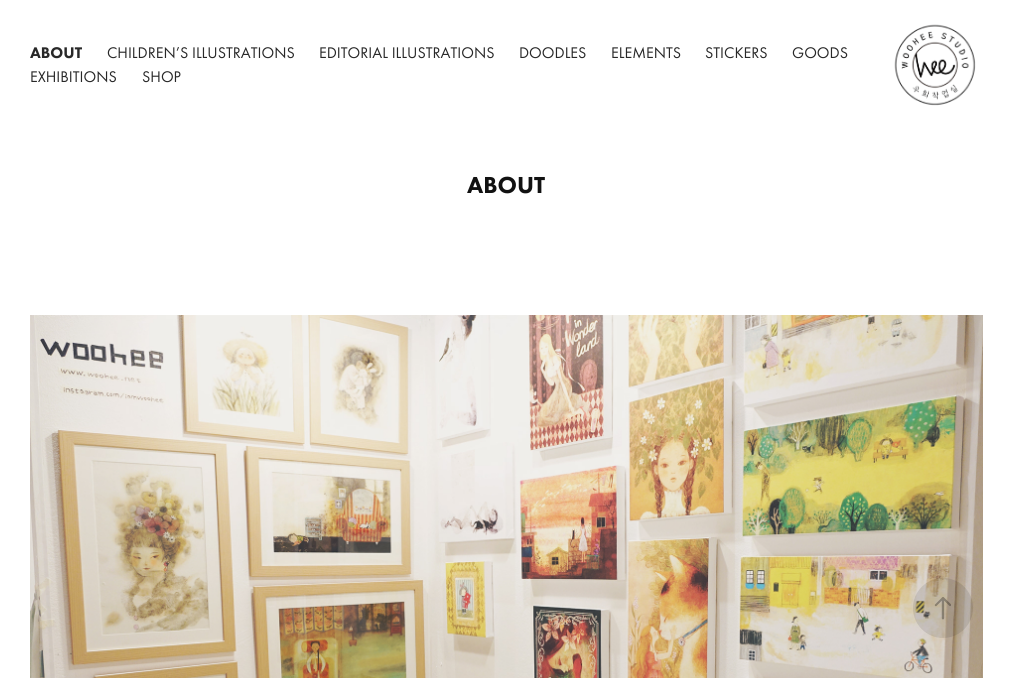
#include <cairo/cairo.h>
#include <math.h>
#include <stddef.h>

static cairo_t *cr;

static void use_color(int r, int g, int b) {
  cairo_set_source_rgb(cr, r / 255.0, g / 255.0, b / 255.0);
}

static void text(double x, double y, const char *s, const char *family, double size, int italic, int bold, int r, int g, int b) {
  cairo_select_font_face(cr, family, italic ? CAIRO_FONT_SLANT_ITALIC : CAIRO_FONT_SLANT_NORMAL,
    bold ? CAIRO_FONT_WEIGHT_BOLD : CAIRO_FONT_WEIGHT_NORMAL);
  cairo_set_font_size(cr, size);
  use_color(r, g, b);
  cairo_move_to(cr, x, y);
  cairo_show_text(cr, s);
}

static void picture(const char *path, double x, double y, double w, double h) {
  cairo_surface_t *image = cairo_image_surface_create_from_png(path);
  cairo_save(cr);
  cairo_set_source_surface(cr, image, x, y);
  cairo_rectangle(cr, x, y, w, h);
  cairo_fill(cr);
  cairo_restore(cr);
  cairo_surface_destroy(image);
}

static void draw(void) {
  use_color(255, 255, 255);
  cairo_paint(cr);
  picture("img_01.png", 894, 24, 82, 82);
  picture("img_02.png", 30, 315, 953, 363);
  cairo_set_source_rgba(cr, 0, 0, 0, 0.1);
  cairo_arc(cr, 943, 608, 30, 0, 2 * M_PI);
  cairo_fill(cr);
  picture("img_03.png", 934, 597, 17, 23);
  text(30, 58, "ABOUT", "Futura PT Black", 16, 0, 0, 40, 40, 40);
  text(107, 58, "CHILDREN’S ILLUSTRATIONS", "Futura PT", 16, 0, 0, 40, 40, 40);
  text(319, 58, "EDITORIAL ILLUSTRATIONS", "Futura PT", 16, 0, 0, 40, 40, 40);
  text(519, 58, "DOODLES", "Futura PT", 16, 0, 0, 40, 40, 40);
  text(611, 58, "ELEMENTS", "Futura PT", 16, 0, 0, 40, 40, 40);
  text(705, 58, "STICKERS", "Futura PT", 16, 0, 0, 40, 40, 40);
  text(792, 58, "GOODS", "Futura PT", 16, 0, 0, 40, 40, 40);
  text(30, 82, "EXHIBITIONS", "Futura PT", 16, 0, 0, 40, 40, 40);
  text(142, 82, "SHOP", "Futura PT", 16, 0, 0, 40, 40, 40);
  text(467, 193, "ABOUT", "Futura PT Black", 24, 0, 0, 17, 17, 17);
}

int main(void) {
  cairo_surface_t *surface = cairo_image_surface_create(CAIRO_FORMAT_RGB24, 1013, 678);
  cr = cairo_create(surface);
  cairo_font_options_t *options = cairo_font_options_create();
  cairo_font_options_set_hint_metrics(options, CAIRO_HINT_METRICS_OFF);
  cairo_font_options_set_hint_style(options, CAIRO_HINT_STYLE_NONE);
  cairo_set_font_options(cr, options);
  cairo_set_miter_limit(cr, 4);
  draw();
  cairo_surface_write_to_png(surface, "out.png");
  cairo_font_options_destroy(options);
  cairo_destroy(cr);
  cairo_surface_destroy(surface);
  return 0;
}
